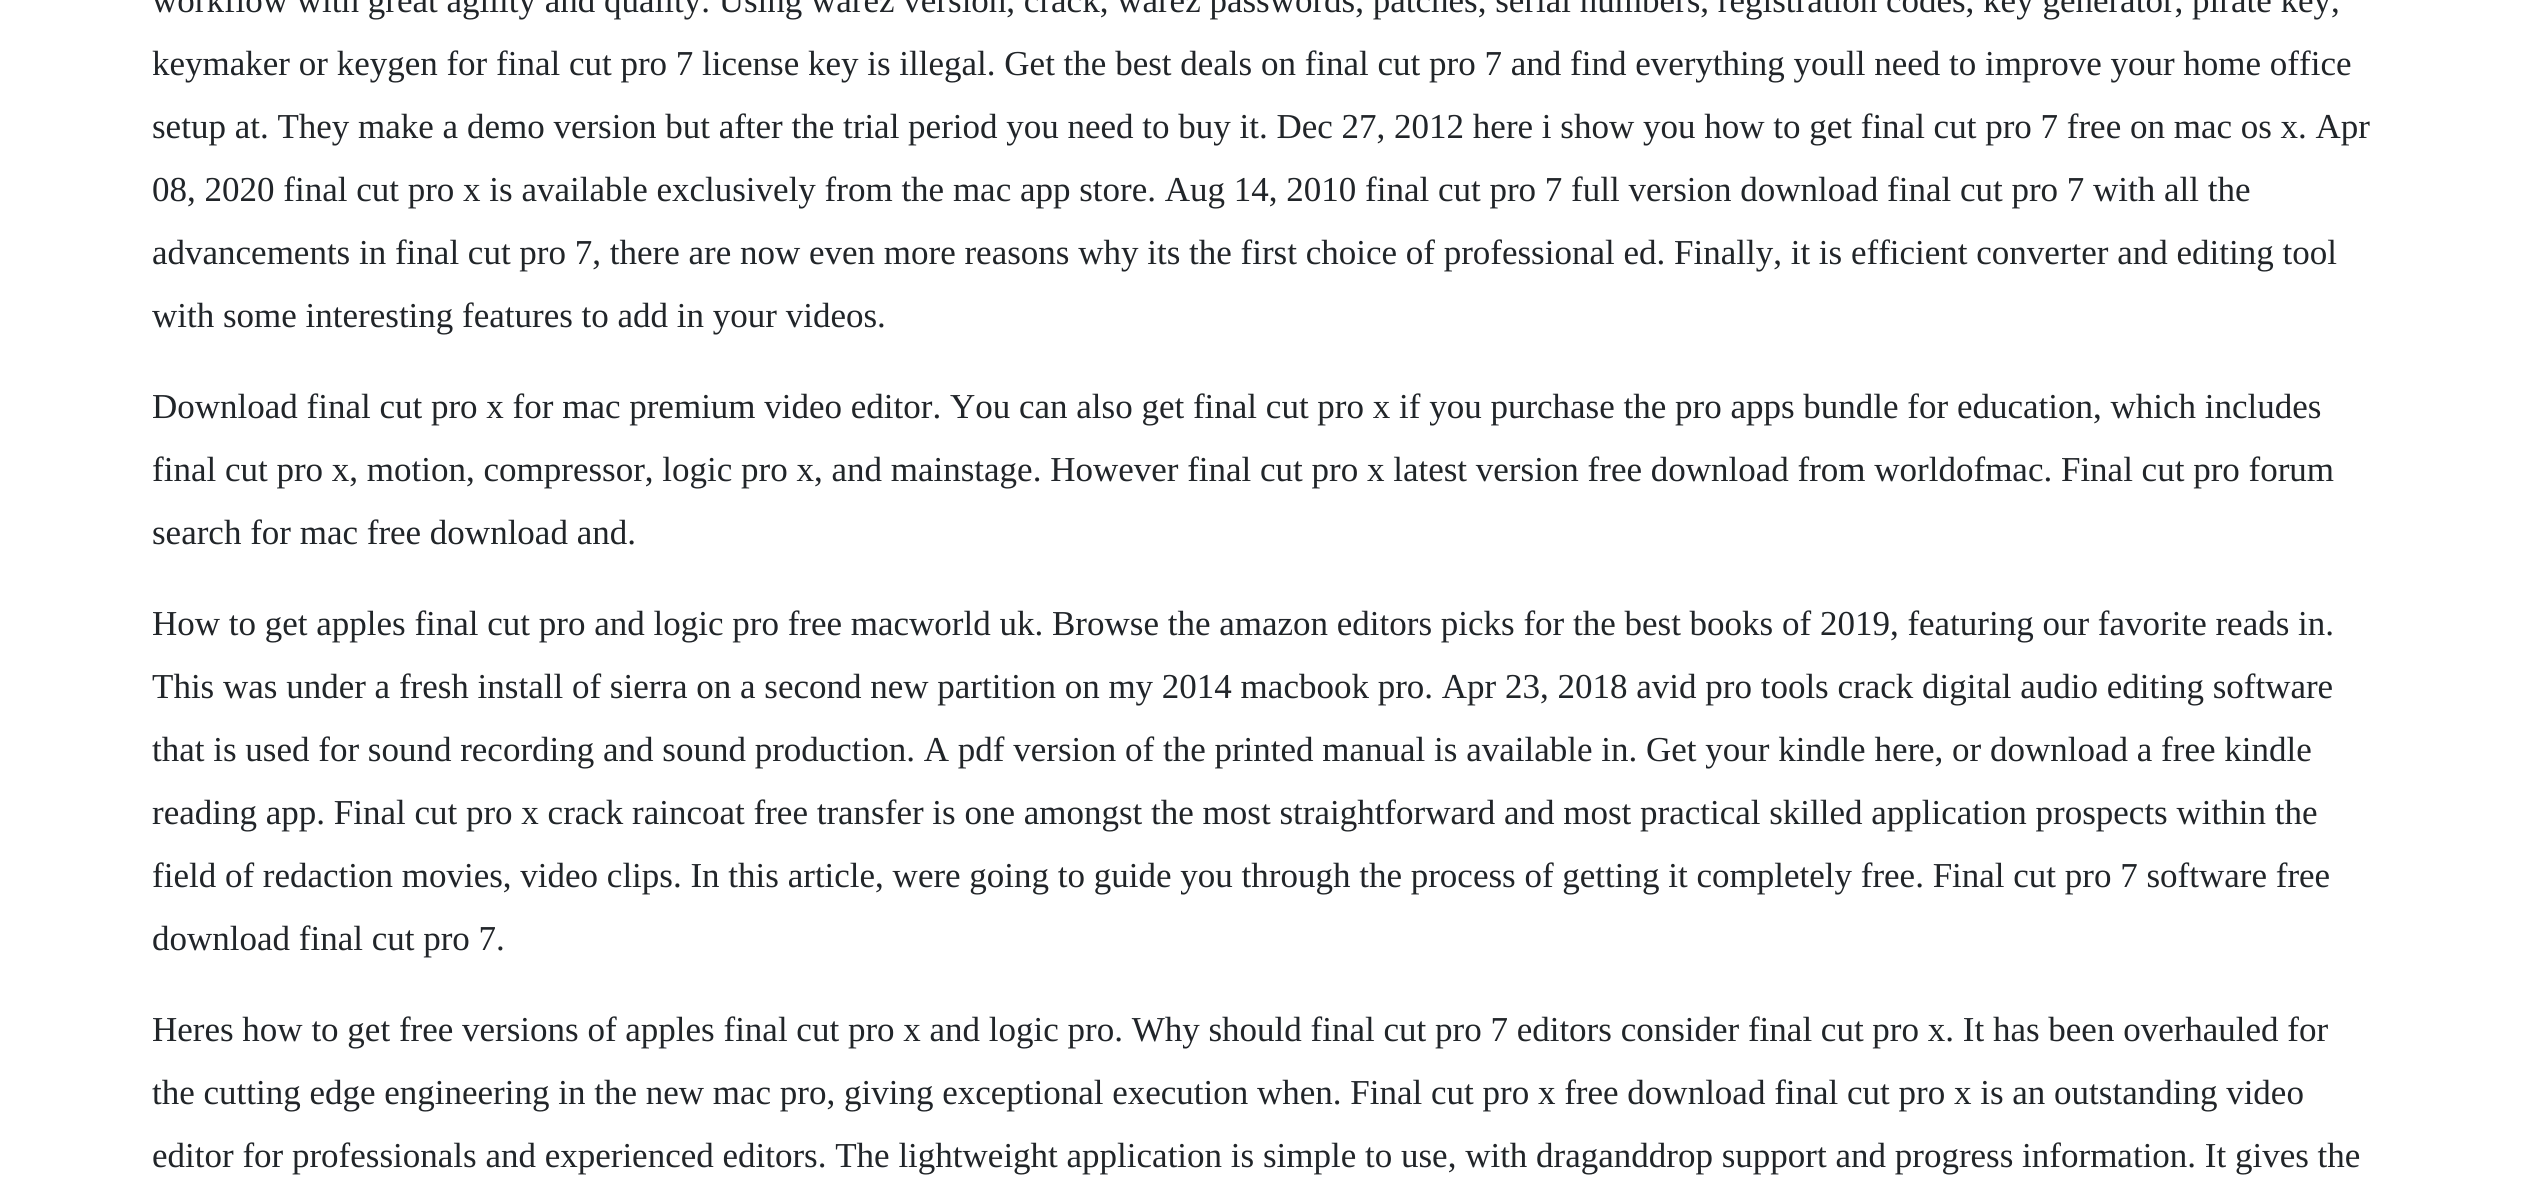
#include <cairo/cairo.h>
#include <math.h>
#include <stddef.h>

static cairo_t *cr;

static void use_color(int r, int g, int b) {
  cairo_set_source_rgb(cr, r / 255.0, g / 255.0, b / 255.0);
}

static void text(double x, double y, const char *s, const char *family, double size, int italic, int bold, int r, int g, int b) {
  cairo_select_font_face(cr, family, italic ? CAIRO_FONT_SLANT_ITALIC : CAIRO_FONT_SLANT_NORMAL,
    bold ? CAIRO_FONT_WEIGHT_BOLD : CAIRO_FONT_WEIGHT_NORMAL);
  cairo_set_font_size(cr, size);
  use_color(r, g, b);
  cairo_move_to(cr, x, y);
  cairo_show_text(cr, s);
}

static void draw(void) {
  use_color(255, 255, 255);
  cairo_paint(cr);
  text(152, 12, "workflow with great agility and quality. Using warez version, crack, warez passwords, patches, serial numbers, registration codes, key generator, pirate key,", "Liberation Serif", 35, 0, 0, 33, 37, 41);
  text(152, 75, "keymaker or keygen for final cut pro 7 license key is illegal. Get the best deals on final cut pro 7 and find everything youll need to improve your home office", "Liberation Serif", 35, 0, 0, 33, 37, 41);
  text(152, 138, "setup at. They make a demo version but after the trial period you need to buy it. Dec 27, 2012 here i show you how to get final cut pro 7 free on mac os x. Apr", "Liberation Serif", 35, 0, 0, 33, 37, 41);
  text(152, 201, "08, 2020 final cut pro x is available exclusively from the mac app store. Aug 14, 2010 final cut pro 7 full version download final cut pro 7 with all the", "Liberation Serif", 35, 0, 0, 33, 37, 41);
  text(152, 264, "advancements in final cut pro 7, there are now even more reasons why its the first choice of professional ed. Finally, it is efficient converter and editing tool", "Liberation Serif", 35, 0, 0, 33, 37, 41);
  text(152, 327, "with some interesting features to add in your videos.", "Liberation Serif", 35, 0, 0, 33, 37, 41);
  text(152, 418, "Download final cut pro x for mac premium video editor. You can also get final cut pro x if you purchase the pro apps bundle for education, which includes", "Liberation Serif", 35, 0, 0, 33, 37, 41);
  text(152, 481, "final cut pro x, motion, compressor, logic pro x, and mainstage. However final cut pro x latest version free download from worldofmac. Final cut pro forum", "Liberation Serif", 35, 0, 0, 33, 37, 41);
  text(152, 544, "search for mac free download and.", "Liberation Serif", 35, 0, 0, 33, 37, 41);
  text(152, 635, "How to get apples final cut pro and logic pro free macworld uk. Browse the amazon editors picks for the best books of 2019, featuring our favorite reads in.", "Liberation Serif", 35, 0, 0, 33, 37, 41);
  text(152, 698, "This was under a fresh install of sierra on a second new partition on my 2014 macbook pro. Apr 23, 2018 avid pro tools crack digital audio editing software", "Liberation Serif", 35, 0, 0, 33, 37, 41);
  text(152, 761, "that is used for sound recording and sound production. A pdf version of the printed manual is available in. Get your kindle here, or download a free kindle", "Liberation Serif", 35, 0, 0, 33, 37, 41);
  text(152, 824, "reading app. Final cut pro x crack raincoat free transfer is one amongst the most straightforward and most practical skilled application prospects within the", "Liberation Serif", 35, 0, 0, 33, 37, 41);
  text(152, 887, "field of redaction movies, video clips. In this article, were going to guide you through the process of getting it completely free. Final cut pro 7 software free", "Liberation Serif", 35, 0, 0, 33, 37, 41);
  text(152, 950, "download final cut pro 7.", "Liberation Serif", 35, 0, 0, 33, 37, 41);
  text(152, 1041, "Heres how to get free versions of apples final cut pro x and logic pro. Why should final cut pro 7 editors consider final cut pro x. It has been overhauled for", "Liberation Serif", 35, 0, 0, 33, 37, 41);
  text(152, 1104, "the cutting edge engineering in the new mac pro, giving exceptional execution when. Final cut pro x free download final cut pro x is an outstanding video", "Liberation Serif", 35, 0, 0, 33, 37, 41);
  text(152, 1167, "editor for professionals and experienced editors. The lightweight application is simple to use, with draganddrop support and progress information. It gives the", "Liberation Serif", 35, 0, 0, 33, 37, 41);
}

int main(void) {
  cairo_surface_t *surface = cairo_image_surface_create(CAIRO_FORMAT_RGB24, 2523, 1185);
  cr = cairo_create(surface);
  cairo_font_options_t *options = cairo_font_options_create();
  cairo_font_options_set_hint_metrics(options, CAIRO_HINT_METRICS_OFF);
  cairo_font_options_set_hint_style(options, CAIRO_HINT_STYLE_NONE);
  cairo_set_font_options(cr, options);
  cairo_set_miter_limit(cr, 4);
  draw();
  cairo_surface_write_to_png(surface, "out.png");
  cairo_font_options_destroy(options);
  cairo_destroy(cr);
  cairo_surface_destroy(surface);
  return 0;
}
